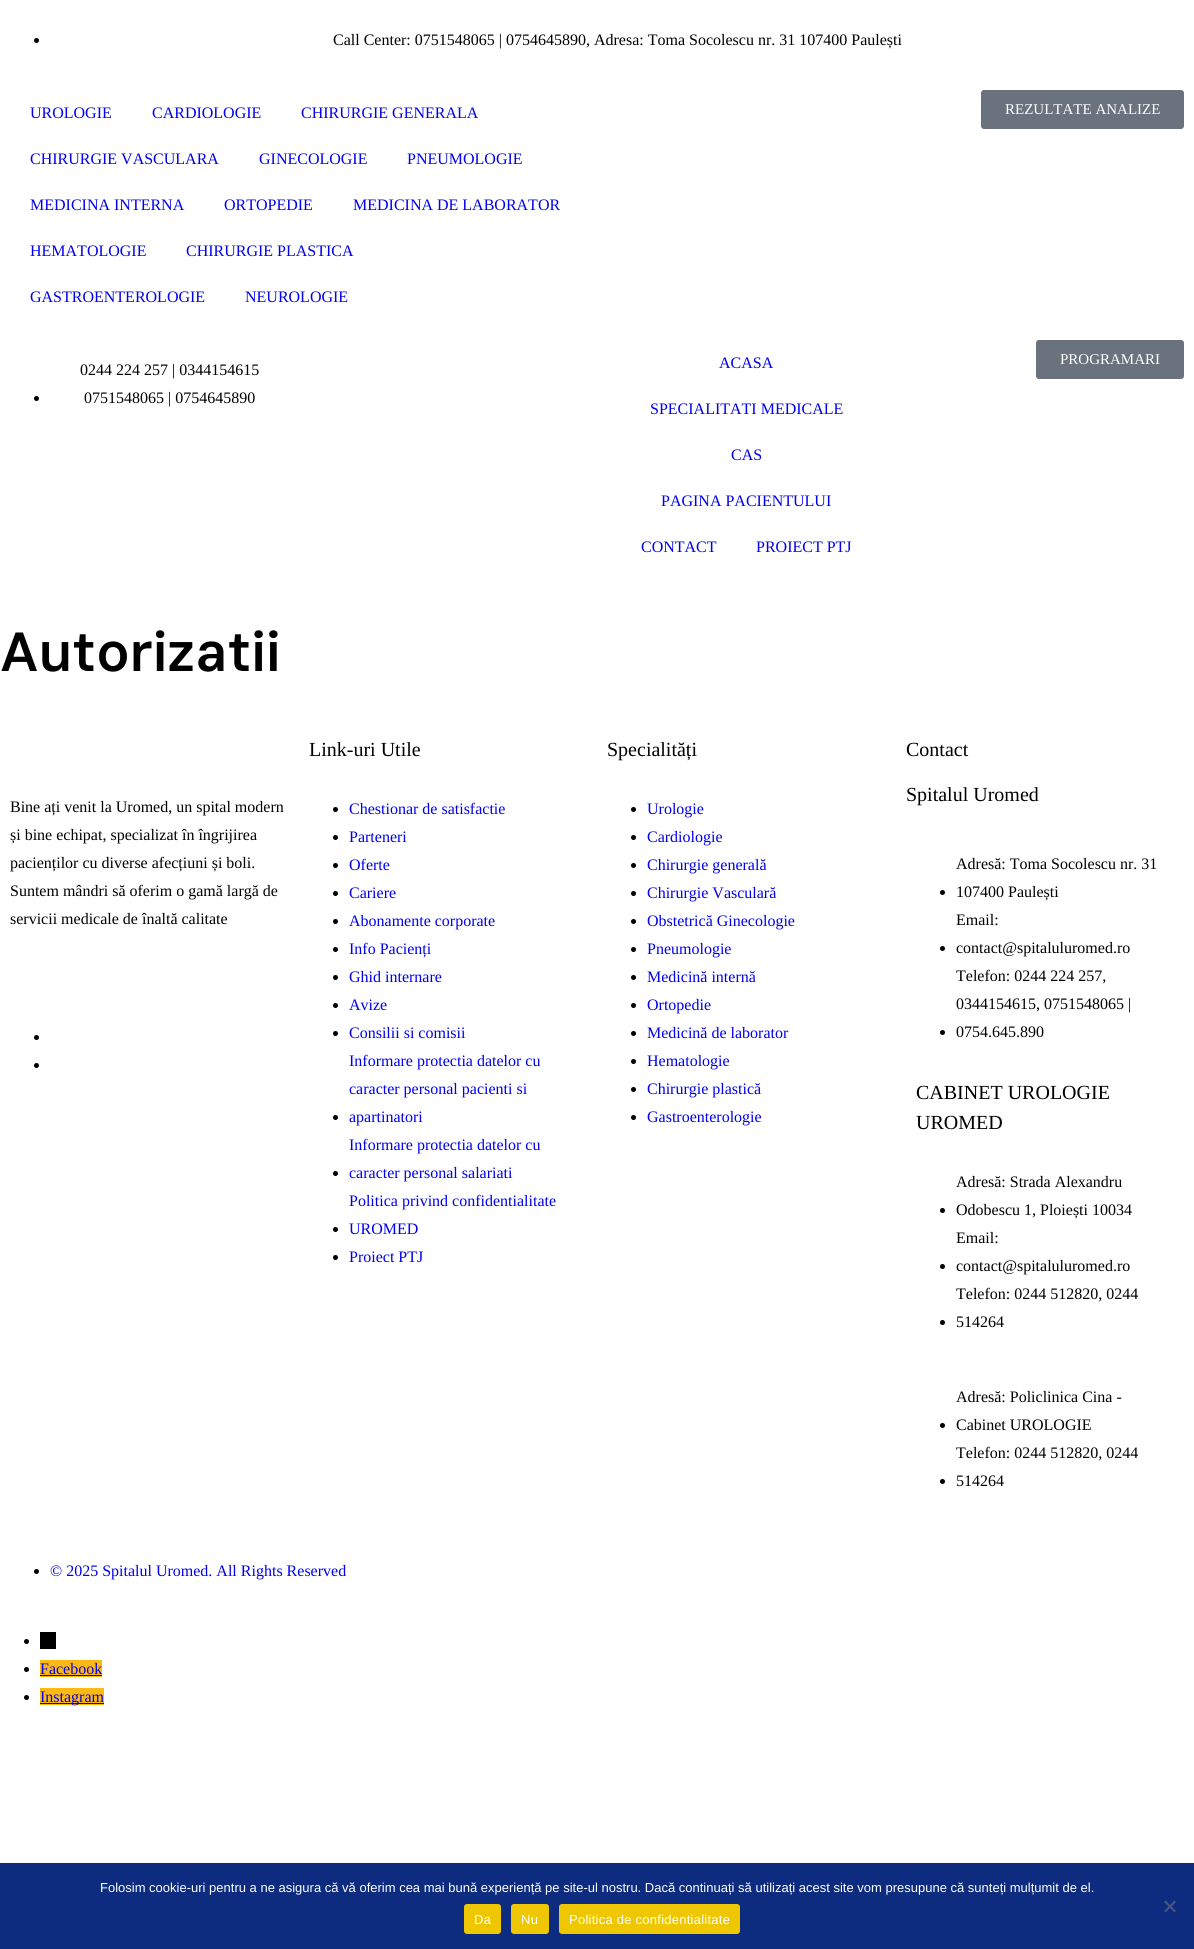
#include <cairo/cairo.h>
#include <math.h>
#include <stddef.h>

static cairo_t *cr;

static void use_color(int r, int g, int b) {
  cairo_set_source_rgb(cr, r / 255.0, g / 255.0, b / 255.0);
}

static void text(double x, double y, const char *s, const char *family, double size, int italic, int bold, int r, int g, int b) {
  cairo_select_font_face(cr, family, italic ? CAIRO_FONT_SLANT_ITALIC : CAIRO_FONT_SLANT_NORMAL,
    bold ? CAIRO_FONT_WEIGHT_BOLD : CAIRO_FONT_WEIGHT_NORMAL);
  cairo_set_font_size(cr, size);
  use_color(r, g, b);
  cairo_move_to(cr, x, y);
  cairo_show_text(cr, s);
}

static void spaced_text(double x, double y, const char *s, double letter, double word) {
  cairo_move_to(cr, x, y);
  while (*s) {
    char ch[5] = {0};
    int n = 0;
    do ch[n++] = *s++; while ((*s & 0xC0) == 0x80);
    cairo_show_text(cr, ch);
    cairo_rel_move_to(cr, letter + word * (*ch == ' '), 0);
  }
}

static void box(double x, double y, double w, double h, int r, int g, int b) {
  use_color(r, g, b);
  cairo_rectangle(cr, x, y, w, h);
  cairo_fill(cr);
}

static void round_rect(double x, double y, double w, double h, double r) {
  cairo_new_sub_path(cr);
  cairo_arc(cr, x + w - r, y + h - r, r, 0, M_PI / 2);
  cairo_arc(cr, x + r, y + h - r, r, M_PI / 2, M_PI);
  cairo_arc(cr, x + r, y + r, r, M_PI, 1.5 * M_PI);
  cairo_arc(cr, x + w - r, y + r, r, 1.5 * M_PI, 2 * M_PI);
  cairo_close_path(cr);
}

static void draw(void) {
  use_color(255, 255, 255);
  cairo_paint(cr);
  use_color(0, 0, 0);
  cairo_arc(cr, 36.5, 40.5, 2.5, 0, 2 * M_PI);
  cairo_fill(cr);
  use_color(105, 114, 125);
  round_rect(981, 90, 203, 39, 3);
  cairo_fill(cr);
  use_color(0, 0, 0);
  cairo_arc(cr, 36.5, 398.5, 2.5, 0, 2 * M_PI);
  cairo_fill(cr);
  use_color(105, 114, 125);
  round_rect(1036, 340, 148, 39, 3);
  cairo_fill(cr);
  use_color(0, 0, 0);
  cairo_arc(cr, 36.5, 1037.5, 2.5, 0, 2 * M_PI);
  cairo_fill(cr);
  cairo_arc(cr, 36.5, 1065.5, 2.5, 0, 2 * M_PI);
  cairo_fill(cr);
  cairo_arc(cr, 335.5, 809.5, 2.5, 0, 2 * M_PI);
  cairo_fill(cr);
  cairo_arc(cr, 335.5, 837.5, 2.5, 0, 2 * M_PI);
  cairo_fill(cr);
  cairo_arc(cr, 335.5, 865.5, 2.5, 0, 2 * M_PI);
  cairo_fill(cr);
  cairo_arc(cr, 335.5, 893.5, 2.5, 0, 2 * M_PI);
  cairo_fill(cr);
  cairo_arc(cr, 335.5, 921.5, 2.5, 0, 2 * M_PI);
  cairo_fill(cr);
  cairo_arc(cr, 335.5, 949.5, 2.5, 0, 2 * M_PI);
  cairo_fill(cr);
  cairo_arc(cr, 335.5, 977.5, 2.5, 0, 2 * M_PI);
  cairo_fill(cr);
  cairo_arc(cr, 335.5, 1005.5, 2.5, 0, 2 * M_PI);
  cairo_fill(cr);
  cairo_arc(cr, 335.5, 1033.5, 2.5, 0, 2 * M_PI);
  cairo_fill(cr);
  cairo_arc(cr, 335.5, 1117.5, 2.5, 0, 2 * M_PI);
  cairo_fill(cr);
  cairo_arc(cr, 335.5, 1173.5, 2.5, 0, 2 * M_PI);
  cairo_fill(cr);
  cairo_arc(cr, 335.5, 1229.5, 2.5, 0, 2 * M_PI);
  cairo_fill(cr);
  cairo_arc(cr, 335.5, 1257.5, 2.5, 0, 2 * M_PI);
  cairo_fill(cr);
  cairo_arc(cr, 633.5, 809.5, 2.5, 0, 2 * M_PI);
  cairo_fill(cr);
  cairo_arc(cr, 633.5, 837.5, 2.5, 0, 2 * M_PI);
  cairo_fill(cr);
  cairo_arc(cr, 633.5, 865.5, 2.5, 0, 2 * M_PI);
  cairo_fill(cr);
  cairo_arc(cr, 633.5, 893.5, 2.5, 0, 2 * M_PI);
  cairo_fill(cr);
  cairo_arc(cr, 633.5, 921.5, 2.5, 0, 2 * M_PI);
  cairo_fill(cr);
  cairo_arc(cr, 633.5, 949.5, 2.5, 0, 2 * M_PI);
  cairo_fill(cr);
  cairo_arc(cr, 633.5, 977.5, 2.5, 0, 2 * M_PI);
  cairo_fill(cr);
  cairo_arc(cr, 633.5, 1005.5, 2.5, 0, 2 * M_PI);
  cairo_fill(cr);
  cairo_arc(cr, 633.5, 1033.5, 2.5, 0, 2 * M_PI);
  cairo_fill(cr);
  cairo_arc(cr, 633.5, 1061.5, 2.5, 0, 2 * M_PI);
  cairo_fill(cr);
  cairo_arc(cr, 633.5, 1089.5, 2.5, 0, 2 * M_PI);
  cairo_fill(cr);
  cairo_arc(cr, 633.5, 1117.5, 2.5, 0, 2 * M_PI);
  cairo_fill(cr);
  cairo_arc(cr, 942.5, 892.5, 2.5, 0, 2 * M_PI);
  cairo_fill(cr);
  cairo_arc(cr, 942.5, 948.5, 2.5, 0, 2 * M_PI);
  cairo_fill(cr);
  cairo_arc(cr, 942.5, 1032.5, 2.5, 0, 2 * M_PI);
  cairo_fill(cr);
  cairo_arc(cr, 942.5, 1210.5, 2.5, 0, 2 * M_PI);
  cairo_fill(cr);
  cairo_arc(cr, 942.5, 1266.5, 2.5, 0, 2 * M_PI);
  cairo_fill(cr);
  cairo_arc(cr, 942.5, 1322.5, 2.5, 0, 2 * M_PI);
  cairo_fill(cr);
  cairo_arc(cr, 942.5, 1425.5, 2.5, 0, 2 * M_PI);
  cairo_fill(cr);
  cairo_arc(cr, 942.5, 1481.5, 2.5, 0, 2 * M_PI);
  cairo_fill(cr);
  cairo_arc(cr, 36.5, 1571.5, 2.5, 0, 2 * M_PI);
  cairo_fill(cr);
  cairo_arc(cr, 26.5, 1641.5, 2.5, 0, 2 * M_PI);
  cairo_fill(cr);
  box(40, 1632, 16, 17, 0, 0, 0);
  cairo_arc(cr, 26.5, 1669.5, 2.5, 0, 2 * M_PI);
  cairo_fill(cr);
  box(40, 1660, 62, 17, 253, 185, 19);
  box(40, 1675, 62, 1, 0, 0, 238);
  use_color(0, 0, 0);
  cairo_arc(cr, 26.5, 1697.5, 2.5, 0, 2 * M_PI);
  cairo_fill(cr);
  box(40, 1688, 64, 17, 253, 185, 19);
  box(40, 1703, 64, 1, 0, 0, 238);
  box(0, 1863, 1194, 86, 14, 44, 127);
  use_color(71, 86, 128);
  cairo_new_path(cr);
  cairo_move_to(cr, 1174.5, 1900.5);
  cairo_line_to(cr, 1176, 1902);
  cairo_line_to(cr, 1165.5, 1912.5);
  cairo_line_to(cr, 1164, 1911);
  cairo_close_path(cr);
  cairo_fill(cr);
  cairo_new_path(cr);
  cairo_move_to(cr, 1164, 1902);
  cairo_line_to(cr, 1165.5, 1900.5);
  cairo_line_to(cr, 1176, 1911);
  cairo_line_to(cr, 1174.5, 1912.5);
  cairo_close_path(cr);
  cairo_fill(cr);
  use_color(239, 199, 0);
  round_rect(464, 1904, 37, 30, 3);
  cairo_fill(cr);
  round_rect(511, 1904, 38, 30, 3);
  cairo_fill(cr);
  round_rect(559, 1904, 181, 30, 3);
  cairo_fill(cr);
  text(333, 45, "Call Center: 0751548065 | 0754645890, Adresa: Toma Socolescu nr. 31 107400 Paulești", "Liberation Serif", 16, 0, 0, 0, 0, 0);
  text(30, 118, "UROLOGIE", "Liberation Serif", 16, 0, 0, 0, 0, 238);
  text(152, 118, "CARDIOLOGIE", "Liberation Serif", 16, 0, 0, 0, 0, 238);
  text(301, 118, "CHIRURGIE GENERALA", "Liberation Serif", 16, 0, 0, 0, 0, 238);
  text(30, 164, "CHIRURGIE VASCULARA", "Liberation Serif", 16, 0, 0, 0, 0, 238);
  text(259, 164, "GINECOLOGIE", "Liberation Serif", 16, 0, 0, 0, 0, 238);
  text(407, 164, "PNEUMOLOGIE", "Liberation Serif", 16, 0, 0, 0, 0, 238);
  text(30, 210, "MEDICINA INTERNA", "Liberation Serif", 16, 0, 0, 0, 0, 238);
  text(224, 210, "ORTOPEDIE", "Liberation Serif", 16, 0, 0, 0, 0, 238);
  text(353, 210, "MEDICINA DE LABORATOR", "Liberation Serif", 16, 0, 0, 0, 0, 238);
  text(30, 256, "HEMATOLOGIE", "Liberation Serif", 16, 0, 0, 0, 0, 238);
  text(186, 256, "CHIRURGIE PLASTICA", "Liberation Serif", 16, 0, 0, 0, 0, 238);
  text(30, 302, "GASTROENTEROLOGIE", "Liberation Serif", 16, 0, 0, 0, 0, 238);
  text(245, 302, "NEUROLOGIE", "Liberation Serif", 16, 0, 0, 0, 0, 238);
  text(1005, 114, "REZULTATE ANALIZE", "Liberation Serif", 15, 0, 0, 255, 255, 255);
  text(80, 375, "0244 224 257 | 0344154615", "Liberation Serif", 16, 0, 0, 0, 0, 0);
  text(84, 403, "0751548065 | 0754645890", "Liberation Serif", 16, 0, 0, 0, 0, 0);
  text(719, 368, "ACASA", "Liberation Serif", 16, 0, 0, 0, 0, 238);
  text(650, 414, "SPECIALITATI MEDICALE", "Liberation Serif", 16, 0, 0, 0, 0, 238);
  text(731, 460, "CAS", "Liberation Serif", 16, 0, 0, 0, 0, 238);
  text(661, 506, "PAGINA PACIENTULUI", "Liberation Serif", 16, 0, 0, 0, 0, 238);
  text(641, 552, "CONTACT", "Liberation Serif", 16, 0, 0, 0, 0, 238);
  text(756, 552, "PROIECT PTJ", "Liberation Serif", 16, 0, 0, 0, 0, 238);
  text(1060, 364, "PROGRAMARI", "Liberation Serif", 15, 0, 0, 255, 255, 255);
  text(0, 671, "Autorizatii", "DM Sans SemiBold", 55, 0, 0, 0, 0, 0);
  text(10, 812, "Bine ați venit la Uromed, un spital modern", "Liberation Serif", 16, 0, 0, 0, 0, 0);
  text(10, 840, "și bine echipat, specializat în îngrijirea", "Liberation Serif", 16, 0, 0, 0, 0, 0);
  text(10, 868, "pacienților cu diverse afecțiuni și boli.", "Liberation Serif", 16, 0, 0, 0, 0, 0);
  text(10, 896, "Suntem mândri să oferim o gamă largă de", "Liberation Serif", 16, 0, 0, 0, 0, 0);
  text(10, 924, "servicii medicale de înaltă calitate", "Liberation Serif", 16, 0, 0, 0, 0, 0);
  text(309, 756, "Link-uri Utile", "Liberation Serif", 20, 0, 0, 0, 0, 0);
  text(349, 814, "Chestionar de satisfactie", "Liberation Serif", 16, 0, 0, 0, 0, 238);
  text(349, 842, "Parteneri", "Liberation Serif", 16, 0, 0, 0, 0, 238);
  text(349, 870, "Oferte", "Liberation Serif", 16, 0, 0, 0, 0, 238);
  text(349, 898, "Cariere", "Liberation Serif", 16, 0, 0, 0, 0, 238);
  text(349, 926, "Abonamente corporate", "Liberation Serif", 16, 0, 0, 0, 0, 238);
  text(349, 954, "Info Pacienți", "Liberation Serif", 16, 0, 0, 0, 0, 238);
  text(349, 982, "Ghid internare", "Liberation Serif", 16, 0, 0, 0, 0, 238);
  text(349, 1010, "Avize", "Liberation Serif", 16, 0, 0, 0, 0, 238);
  text(349, 1038, "Consilii si comisii", "Liberation Serif", 16, 0, 0, 0, 0, 238);
  text(349, 1066, "Informare protectia datelor cu", "Liberation Serif", 16, 0, 0, 0, 0, 238);
  text(349, 1094, "caracter personal pacienti si", "Liberation Serif", 16, 0, 0, 0, 0, 238);
  text(349, 1122, "apartinatori", "Liberation Serif", 16, 0, 0, 0, 0, 238);
  text(349, 1150, "Informare protectia datelor cu", "Liberation Serif", 16, 0, 0, 0, 0, 238);
  text(349, 1178, "caracter personal salariati", "Liberation Serif", 16, 0, 0, 0, 0, 238);
  text(349, 1206, "Politica privind confidentialitate", "Liberation Serif", 16, 0, 0, 0, 0, 238);
  text(349, 1234, "UROMED", "Liberation Serif", 16, 0, 0, 0, 0, 238);
  text(349, 1262, "Proiect PTJ", "Liberation Serif", 16, 0, 0, 0, 0, 238);
  text(607, 756, "Specialități", "Liberation Serif", 20, 0, 0, 0, 0, 0);
  text(647, 814, "Urologie", "Liberation Serif", 16, 0, 0, 0, 0, 238);
  text(647, 842, "Cardiologie", "Liberation Serif", 16, 0, 0, 0, 0, 238);
  text(647, 870, "Chirurgie generală", "Liberation Serif", 16, 0, 0, 0, 0, 238);
  text(647, 898, "Chirurgie Vasculară", "Liberation Serif", 16, 0, 0, 0, 0, 238);
  text(647, 926, "Obstetrică Ginecologie", "Liberation Serif", 16, 0, 0, 0, 0, 238);
  text(647, 954, "Pneumologie", "Liberation Serif", 16, 0, 0, 0, 0, 238);
  text(647, 982, "Medicină internă", "Liberation Serif", 16, 0, 0, 0, 0, 238);
  text(647, 1010, "Ortopedie", "Liberation Serif", 16, 0, 0, 0, 0, 238);
  text(647, 1038, "Medicină de laborator", "Liberation Serif", 16, 0, 0, 0, 0, 238);
  text(647, 1066, "Hematologie", "Liberation Serif", 16, 0, 0, 0, 0, 238);
  text(647, 1094, "Chirurgie plastică", "Liberation Serif", 16, 0, 0, 0, 0, 238);
  text(647, 1122, "Gastroenterologie", "Liberation Serif", 16, 0, 0, 0, 0, 238);
  text(906, 756, "Contact", "Liberation Serif", 20, 0, 0, 0, 0, 0);
  text(906, 801, "Spitalul Uromed", "Liberation Serif", 20, 0, 0, 0, 0, 0);
  text(956, 869, "Adresă: Toma Socolescu nr. 31", "Liberation Serif", 16, 0, 0, 0, 0, 0);
  text(956, 897, "107400 Paulești", "Liberation Serif", 16, 0, 0, 0, 0, 0);
  text(956, 925, "Email:", "Liberation Serif", 16, 0, 0, 0, 0, 0);
  text(956, 953, "contact@spitaluluromed.ro", "Liberation Serif", 16, 0, 0, 0, 0, 0);
  text(956, 981, "Telefon: 0244 224 257,", "Liberation Serif", 16, 0, 0, 0, 0, 0);
  text(956, 1009, "0344154615, 0751548065 |", "Liberation Serif", 16, 0, 0, 0, 0, 0);
  text(956, 1037, "0754.645.890", "Liberation Serif", 16, 0, 0, 0, 0, 0);
  text(916, 1099, "CABINET UROLOGIE", "Liberation Serif", 20, 0, 0, 0, 0, 0);
  text(916, 1129, "UROMED", "Liberation Serif", 20, 0, 0, 0, 0, 0);
  text(956, 1187, "Adresă: Strada Alexandru", "Liberation Serif", 16, 0, 0, 0, 0, 0);
  text(956, 1215, "Odobescu 1, Ploiești 10034", "Liberation Serif", 16, 0, 0, 0, 0, 0);
  text(956, 1243, "Email:", "Liberation Serif", 16, 0, 0, 0, 0, 0);
  text(956, 1271, "contact@spitaluluromed.ro", "Liberation Serif", 16, 0, 0, 0, 0, 0);
  text(956, 1299, "Telefon: 0244 512820, 0244", "Liberation Serif", 16, 0, 0, 0, 0, 0);
  text(956, 1327, "514264", "Liberation Serif", 16, 0, 0, 0, 0, 0);
  text(956, 1402, "Adresă: Policlinica Cina -", "Liberation Serif", 16, 0, 0, 0, 0, 0);
  text(956, 1430, "Cabinet UROLOGIE", "Liberation Serif", 16, 0, 0, 0, 0, 0);
  text(956, 1458, "Telefon: 0244 512820, 0244", "Liberation Serif", 16, 0, 0, 0, 0, 0);
  text(956, 1486, "514264", "Liberation Serif", 16, 0, 0, 0, 0, 0);
  text(50, 1576, "© 2025 Spitalul Uromed. All Rights Reserved", "Liberation Serif", 16, 0, 0, 0, 0, 238);
  text(40, 1674, "Facebook", "Liberation Serif", 16, 0, 0, 0, 0, 238);
  text(40, 1702, "Instagram", "Liberation Serif", 16, 0, 0, 0, 0, 238);
  text(100, 1892, "Folosim cookie-uri pentru a ne asigura că vă oferim cea mai bună experiență pe site-ul nostru. Dacă continuați să utilizați acest site vom presupune că sunteți mulțumit de el.", "Liberation Sans", 13, 0, 0, 255, 255, 255);
  spaced_text(474, 1924, "Da", 0.25, 0);
  spaced_text(521, 1924, "Nu", 0.25, 0);
  spaced_text(569, 1924, "Politica de confidentialitate", 0.25, 0);
}

int main(void) {
  cairo_surface_t *surface = cairo_image_surface_create(CAIRO_FORMAT_RGB24, 1194, 1949);
  cr = cairo_create(surface);
  cairo_font_options_t *options = cairo_font_options_create();
  cairo_font_options_set_hint_metrics(options, CAIRO_HINT_METRICS_OFF);
  cairo_font_options_set_hint_style(options, CAIRO_HINT_STYLE_NONE);
  cairo_set_font_options(cr, options);
  cairo_set_miter_limit(cr, 4);
  draw();
  cairo_surface_write_to_png(surface, "out.png");
  cairo_font_options_destroy(options);
  cairo_destroy(cr);
  cairo_surface_destroy(surface);
  return 0;
}
